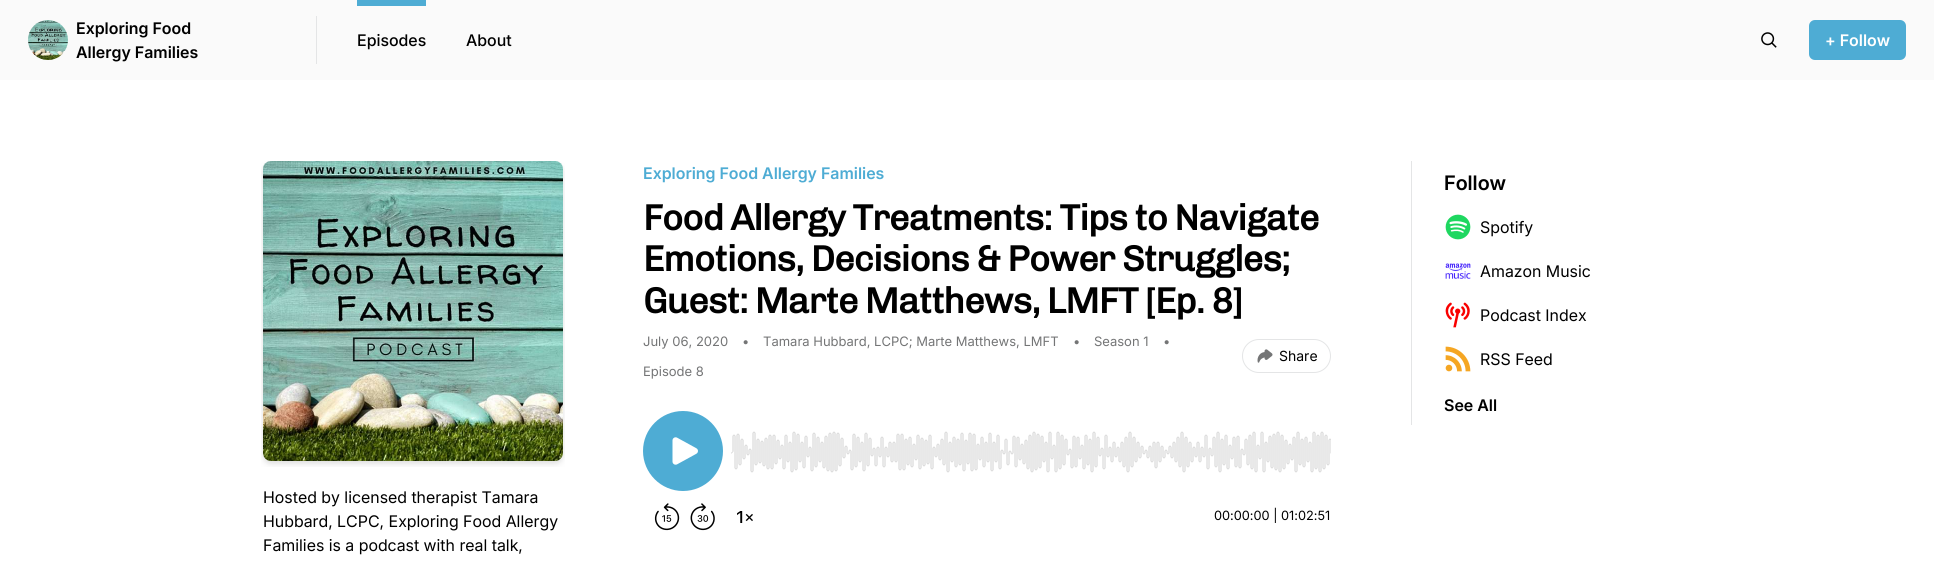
#include <cairo/cairo.h>
#include <math.h>
#include <stddef.h>

static cairo_t *cr;

static void use_color(int r, int g, int b) {
  cairo_set_source_rgb(cr, r / 255.0, g / 255.0, b / 255.0);
}

static void text(double x, double y, const char *s, const char *family, double size, int italic, int bold, int r, int g, int b) {
  cairo_select_font_face(cr, family, italic ? CAIRO_FONT_SLANT_ITALIC : CAIRO_FONT_SLANT_NORMAL,
    bold ? CAIRO_FONT_WEIGHT_BOLD : CAIRO_FONT_WEIGHT_NORMAL);
  cairo_set_font_size(cr, size);
  use_color(r, g, b);
  cairo_move_to(cr, x, y);
  cairo_show_text(cr, s);
}

static void spaced_text(double x, double y, const char *s, double letter, double word) {
  cairo_move_to(cr, x, y);
  while (*s) {
    char ch[5] = {0};
    int n = 0;
    do ch[n++] = *s++; while ((*s & 0xC0) == 0x80);
    cairo_show_text(cr, ch);
    cairo_rel_move_to(cr, letter + word * (*ch == ' '), 0);
  }
}

static void box(double x, double y, double w, double h, int r, int g, int b) {
  use_color(r, g, b);
  cairo_rectangle(cr, x, y, w, h);
  cairo_fill(cr);
}

static void round_rect(double x, double y, double w, double h, double r) {
  cairo_new_sub_path(cr);
  cairo_arc(cr, x + w - r, y + h - r, r, 0, M_PI / 2);
  cairo_arc(cr, x + r, y + h - r, r, M_PI / 2, M_PI);
  cairo_arc(cr, x + r, y + r, r, M_PI, 1.5 * M_PI);
  cairo_arc(cr, x + w - r, y + r, r, 1.5 * M_PI, 2 * M_PI);
  cairo_close_path(cr);
}

static void picture(const char *path, double x, double y, double w, double h) {
  cairo_surface_t *image = cairo_image_surface_create_from_png(path);
  cairo_save(cr);
  cairo_set_source_surface(cr, image, x, y);
  cairo_rectangle(cr, x, y, w, h);
  cairo_fill(cr);
  cairo_restore(cr);
  cairo_surface_destroy(image);
}

static void draw(void) {
  use_color(255, 255, 255);
  cairo_paint(cr);
  box(0, 0, 1934, 80, 250, 250, 250);
  box(316, 16, 1, 48, 228, 229, 230);
  picture("img_01.png", 28, 20, 40, 40);
  box(357, 0, 69, 6, 78, 172, 212);
  picture("img_02.png", 1761, 32, 16, 16);
  round_rect(1809, 20, 97, 40, 6);
  cairo_fill(cr);
  round_rect(1242.5, 339.5, 88, 33, 16.5);
  use_color(228, 229, 230);
  cairo_set_line_width(cr, 1);
  cairo_stroke(cr);
  picture("img_03.png", 1257, 349, 16, 14);
  picture("img_04.png", 654, 503, 26, 28);
  picture("img_05.png", 690, 503, 25, 28);
  picture("img_06.png", 737, 511, 16, 12);
  use_color(78, 172, 212);
  cairo_arc(cr, 683, 451, 40, 0, 2 * M_PI);
  cairo_fill(cr);
  picture("img_07.png", 672, 437, 26, 28);
  picture("img_08.png", 731, 431, 600, 42);
  box(1411, 161, 1, 264, 228, 229, 230);
  picture("img_09.png", 1445, 214, 26, 26);
  picture("img_10.png", 1445, 263, 26, 16);
  picture("img_11.png", 1445, 302, 25, 26);
  picture("img_12.png", 1445, 346, 26, 26);
  picture("img_13.png", 261, 161, 304, 306);
  text(76, 34, "Exploring Food", "Inter SemiBold", 16, 0, 0, 0, 0, 0);
  text(76, 58, "Allergy Families", "Inter SemiBold", 16, 0, 0, 0, 0, 0);
  text(357, 46, "Episodes", "Inter Medium", 16, 0, 0, 0, 0, 0);
  text(466, 46, "About", "Inter Medium", 16, 0, 0, 0, 0, 0);
  text(1825, 46, "+ Follow", "Inter SemiBold", 16, 0, 0, 255, 255, 255);
  text(643, 179, "Exploring Food Allergy Families", "Inter SemiBold", 16, 0, 0, 78, 172, 212);
  cairo_select_font_face(cr, "Chivo", CAIRO_FONT_SLANT_NORMAL, CAIRO_FONT_WEIGHT_BOLD);
  cairo_set_font_size(cr, 36);
  use_color(0, 0, 0);
  spaced_text(643, 230, "Food Allergy Treatments: Tips to Navigate", -0.9, 0);
  spaced_text(643, 271, "Emotions, Decisions & Power Struggles;", -0.9, 0);
  spaced_text(643, 313, "Guest: Marte Matthews, LMFT [Ep. 8]", -0.9, 0);
  text(643, 346, "July 06, 2020", "Inter", 13, 0, 0, 116, 117, 118);
  text(742, 346, "•", "Inter", 13, 0, 0, 116, 117, 118);
  text(763, 346, "Tamara Hubbard, LCPC; Marte Matthews, LMFT", "Inter", 13, 0, 0, 116, 117, 118);
  text(1073, 346, "•", "Inter", 13, 0, 0, 116, 117, 118);
  text(1094, 346, "Season 1", "Inter", 13, 0, 0, 116, 117, 118);
  text(1163, 346, "•", "Inter", 13, 0, 0, 116, 117, 118);
  text(643, 376, "Episode 8", "Inter", 13, 0, 0, 116, 117, 118);
  text(1279, 361, "Share", "Inter", 14, 0, 0, 0, 0, 0);
  text(1214, 520, "00:00:00 | 01:02:51", "Inter", 12.75, 0, 0, 0, 0, 0);
  text(1444, 190, "Follow", "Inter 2 SemiBold", 20, 0, 0, 0, 0, 0);
  text(1480, 233, "Spotify", "Inter 2", 16, 0, 0, 0, 0, 0);
  text(1480, 277, "Amazon Music", "Inter 2", 16, 0, 0, 0, 0, 0);
  text(1480, 321, "Podcast Index", "Inter 2", 16, 0, 0, 0, 0, 0);
  text(1480, 365, "RSS Feed", "Inter 2", 16, 0, 0, 0, 0, 0);
  text(1444, 411, "See All", "Inter SemiBold", 16, 0, 0, 0, 0, 0);
  text(263, 503, "Hosted by licensed therapist Tamara", "Inter 2", 16, 0, 0, 0, 0, 0);
  text(263, 527, "Hubbard, LCPC, Exploring Food Allergy", "Inter 2", 16, 0, 0, 0, 0, 0);
  text(263, 551, "Families is a podcast with real talk,", "Inter 2", 16, 0, 0, 0, 0, 0);
}

int main(void) {
  cairo_surface_t *surface = cairo_image_surface_create(CAIRO_FORMAT_RGB24, 1934, 564);
  cr = cairo_create(surface);
  cairo_font_options_t *options = cairo_font_options_create();
  cairo_font_options_set_hint_metrics(options, CAIRO_HINT_METRICS_OFF);
  cairo_font_options_set_hint_style(options, CAIRO_HINT_STYLE_NONE);
  cairo_set_font_options(cr, options);
  cairo_set_miter_limit(cr, 4);
  draw();
  cairo_surface_write_to_png(surface, "out.png");
  cairo_font_options_destroy(options);
  cairo_destroy(cr);
  cairo_surface_destroy(surface);
  return 0;
}
